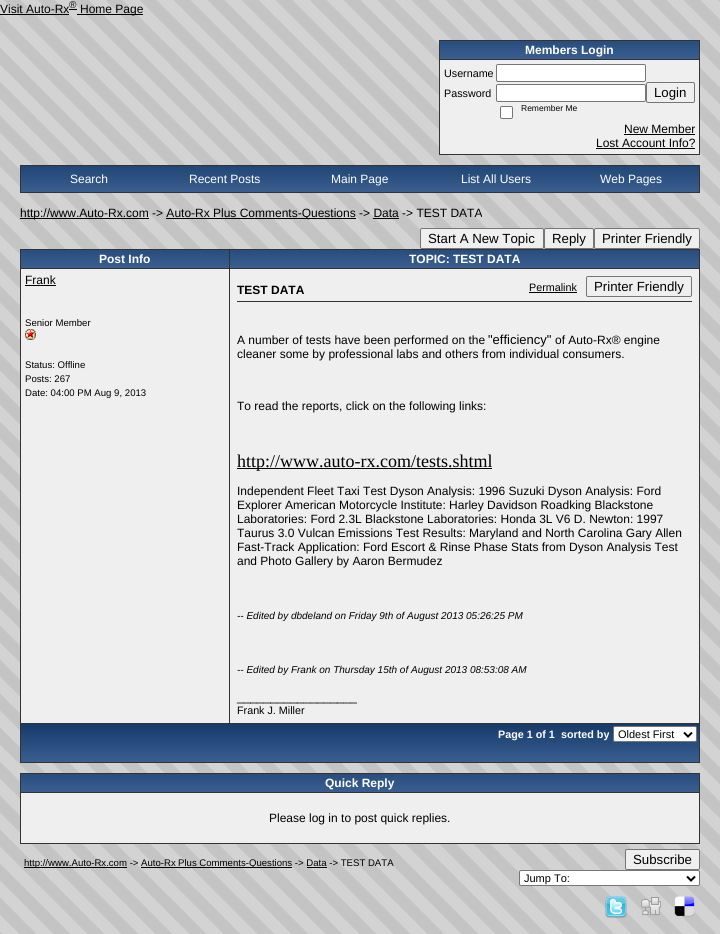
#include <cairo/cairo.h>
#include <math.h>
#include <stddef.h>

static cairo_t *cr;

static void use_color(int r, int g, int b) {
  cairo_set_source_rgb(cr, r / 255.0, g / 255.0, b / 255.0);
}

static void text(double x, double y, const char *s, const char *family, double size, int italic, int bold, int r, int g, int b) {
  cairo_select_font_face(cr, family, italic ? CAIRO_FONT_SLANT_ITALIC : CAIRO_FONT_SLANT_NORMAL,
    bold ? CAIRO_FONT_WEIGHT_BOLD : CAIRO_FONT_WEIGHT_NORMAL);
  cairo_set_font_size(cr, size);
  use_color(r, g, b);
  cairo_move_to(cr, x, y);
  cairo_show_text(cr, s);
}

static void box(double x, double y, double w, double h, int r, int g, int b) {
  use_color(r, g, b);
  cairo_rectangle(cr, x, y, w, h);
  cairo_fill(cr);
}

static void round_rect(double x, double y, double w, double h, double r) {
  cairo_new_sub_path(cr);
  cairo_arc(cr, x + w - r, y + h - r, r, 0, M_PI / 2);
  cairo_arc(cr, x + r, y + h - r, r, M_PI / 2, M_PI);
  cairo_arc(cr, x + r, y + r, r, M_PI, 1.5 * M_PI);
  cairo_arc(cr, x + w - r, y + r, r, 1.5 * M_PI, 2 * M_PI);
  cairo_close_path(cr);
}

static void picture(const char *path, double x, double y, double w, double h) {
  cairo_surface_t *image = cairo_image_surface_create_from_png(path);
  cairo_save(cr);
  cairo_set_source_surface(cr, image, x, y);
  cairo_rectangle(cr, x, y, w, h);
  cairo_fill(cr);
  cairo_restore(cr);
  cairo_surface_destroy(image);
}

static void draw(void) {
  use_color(255, 255, 255);
  cairo_paint(cr);
  picture("img_01.png", 0, 0, 720, 934);
  box(0, 14, 69, 1, 0, 0, 0);
  box(69, 9, 8, 1, 0, 0, 0);
  box(77, 14, 66, 1, 0, 0, 0);
  box(440, 60, 259, 94, 239, 239, 239);
  box(439, 40, 261, 1, 51, 51, 53);
  box(699, 40, 1, 115, 51, 51, 53);
  box(439, 154, 261, 1, 51, 51, 53);
  box(439, 40, 1, 115, 51, 51, 53);
  picture("img_02.png", 440, 41, 259, 18);
  box(439, 59, 261, 1, 51, 51, 53);
  use_color(255, 255, 255);
  round_rect(496.5, 64.5, 149, 17, 1.5);
  cairo_fill_preserve(cr);
  use_color(118, 118, 118);
  cairo_set_line_width(cr, 1);
  cairo_stroke(cr);
  use_color(255, 255, 255);
  round_rect(496.5, 84.5, 149, 17, 1.5);
  cairo_fill_preserve(cr);
  use_color(118, 118, 118);
  cairo_stroke(cr);
  round_rect(646.5, 82.5, 48, 20, 1.5);
  cairo_stroke(cr);
  use_color(255, 255, 255);
  round_rect(500.5, 106.5, 12, 12, 1.5);
  cairo_fill_preserve(cr);
  use_color(118, 118, 118);
  cairo_stroke(cr);
  box(624, 134, 71, 1, 0, 0, 0);
  box(596, 148, 99, 1, 0, 0, 0);
  cairo_rectangle(cr, 20.5, 165.5, 679, 27);
  use_color(51, 51, 53);
  cairo_stroke(cr);
  picture("img_03.png", 21, 166, 136, 26);
  picture("img_04.png", 157, 166, 135, 26);
  picture("img_03.png", 292, 166, 136, 26);
  picture("img_04.png", 428, 166, 135, 26);
  picture("img_03.png", 563, 166, 136, 26);
  box(20, 218, 129, 1, 0, 0, 0);
  box(166, 218, 190, 1, 0, 0, 0);
  box(373, 218, 26, 1, 0, 0, 0);
  use_color(239, 239, 239);
  round_rect(420.5, 228.5, 123, 20, 1.5);
  cairo_fill_preserve(cr);
  use_color(118, 118, 118);
  cairo_stroke(cr);
  use_color(239, 239, 239);
  round_rect(544.5, 228.5, 49, 20, 1.5);
  cairo_fill_preserve(cr);
  use_color(118, 118, 118);
  cairo_stroke(cr);
  use_color(239, 239, 239);
  round_rect(594.5, 228.5, 105, 20, 1.5);
  cairo_fill_preserve(cr);
  use_color(118, 118, 118);
  cairo_stroke(cr);
  box(21, 269, 678, 454, 239, 239, 239);
  box(20, 249, 680, 1, 51, 51, 53);
  box(699, 249, 1, 514, 51, 51, 53);
  box(20, 762, 680, 1, 51, 51, 53);
  box(20, 249, 1, 514, 51, 51, 53);
  picture("img_05.png", 21, 250, 208, 18);
  box(229, 268, 471, 1, 51, 51, 53);
  box(20, 723, 680, 1, 51, 51, 53);
  box(229, 268, 1, 456, 51, 51, 53);
  box(20, 268, 210, 1, 51, 51, 53);
  box(229, 249, 1, 20, 51, 51, 53);
  picture("img_06.png", 230, 250, 469, 18);
  box(25, 285, 31, 1, 0, 0, 0);
  picture("img_07.png", 25, 329, 11, 11);
  box(529, 292, 48, 1, 0, 0, 0);
  round_rect(586.5, 276.5, 105, 20, 1.5);
  use_color(118, 118, 118);
  cairo_stroke(cr);
  box(237, 301, 455, 1, 51, 51, 53);
  box(237, 468, 255, 1, 0, 0, 0);
  picture("img_08.png", 21, 724, 678, 38);
  use_color(255, 255, 255);
  round_rect(613.5, 726.5, 83, 15, 1.5);
  cairo_fill_preserve(cr);
  use_color(118, 118, 118);
  cairo_stroke(cr);
  cairo_new_path(cr);
  cairo_move_to(cr, 684, 732.5);
  cairo_line_to(cr, 688, 736.5);
  cairo_line_to(cr, 692, 732.5);
  use_color(0, 0, 0);
  cairo_set_line_width(cr, 2);
  cairo_stroke(cr);
  box(21, 793, 678, 50, 239, 239, 239);
  box(20, 773, 680, 1, 51, 51, 53);
  box(699, 773, 1, 71, 51, 51, 53);
  box(20, 843, 680, 1, 51, 51, 53);
  box(20, 773, 1, 71, 51, 51, 53);
  picture("img_09.png", 21, 774, 678, 18);
  box(20, 792, 680, 1, 51, 51, 53);
  box(24, 867, 103, 1, 0, 0, 0);
  box(141, 867, 151, 1, 0, 0, 0);
  box(307, 867, 20, 1, 0, 0, 0);
  use_color(239, 239, 239);
  round_rect(625.5, 849.5, 74, 20, 1.5);
  cairo_fill_preserve(cr);
  use_color(118, 118, 118);
  cairo_set_line_width(cr, 1);
  cairo_stroke(cr);
  use_color(255, 255, 255);
  round_rect(519.5, 870.5, 180, 15, 1.5);
  cairo_fill_preserve(cr);
  use_color(118, 118, 118);
  cairo_stroke(cr);
  cairo_new_path(cr);
  cairo_move_to(cr, 687, 876.5);
  cairo_line_to(cr, 691, 880.5);
  cairo_line_to(cr, 695, 876.5);
  use_color(0, 0, 0);
  cairo_set_line_width(cr, 2);
  cairo_stroke(cr);
  picture("img_10.png", 605, 896, 22, 22);
  picture("img_11.png", 641, 897, 20, 19);
  picture("img_12.png", 674, 896, 21, 21);
  text(0, 13, "Visit Auto-Rx", "Liberation Sans", 12, 0, 0, 0, 0, 0);
  text(69, 8, "®", "Liberation Sans", 10, 0, 0, 0, 0, 0);
  text(80, 13, "Home Page", "Liberation Sans", 12, 0, 0, 0, 0, 0);
  text(525, 54, "Members Login", "Liberation Sans", 12, 0, 1, 255, 255, 255);
  text(444, 77, "Username", "Liberation Sans", 10.75, 0, 0, 0, 0, 0);
  text(444, 97, "Password", "Liberation Sans", 10.75, 0, 0, 0, 0, 0);
  text(654, 97, "Login", "Liberation Sans", 13.25, 0, 0, 0, 0, 0);
  text(521, 111, "Remember Me", "Liberation Sans", 8.5, 0, 0, 0, 0, 0);
  text(624, 133, "New Member", "Liberation Sans", 12, 0, 0, 0, 0, 0);
  text(596, 147, "Lost Account Info?", "Liberation Sans", 12, 0, 0, 0, 0, 0);
  text(70, 183, "Search", "Liberation Sans", 12, 0, 0, 255, 255, 255);
  text(189, 183, "Recent Posts", "Liberation Sans", 12, 0, 0, 255, 255, 255);
  text(331, 183, "Main Page", "Liberation Sans", 12, 0, 0, 255, 255, 255);
  text(461, 183, "List All Users", "Liberation Sans", 12, 0, 0, 255, 255, 255);
  text(600, 183, "Web Pages", "Liberation Sans", 12, 0, 0, 255, 255, 255);
  text(20, 217, "http://www.Auto-Rx.com -> Auto-Rx", "Liberation Sans", 12, 0, 0, 0, 0, 0);
  text(213, 217, "Plus Comments-Questions -> Data -> TEST DATA", "Liberation Sans", 12, 0, 0, 0, 0, 0);
  text(428, 243, "Start A New Topic", "Liberation Sans", 13.25, 0, 0, 0, 0, 0);
  text(552, 243, "Reply", "Liberation Sans", 13.25, 0, 0, 0, 0, 0);
  text(602, 243, "Printer Friendly", "Liberation Sans", 13.25, 0, 0, 0, 0, 0);
  text(99, 263, "Post Info", "Liberation Sans", 12, 0, 1, 255, 255, 255);
  text(409, 263, "TOPIC: TEST DATA", "Liberation Sans", 12, 0, 1, 255, 255, 255);
  text(25, 284, "Frank", "Liberation Sans", 12, 0, 0, 0, 0, 0);
  text(25, 326, "Senior Member", "Liberation Sans", 9.6, 0, 0, 0, 0, 0);
  text(25, 368, "Status: Offline", "Liberation Sans", 9.6, 0, 0, 0, 0, 0);
  text(25, 382, "Posts: 267", "Liberation Sans", 9.6, 0, 0, 0, 0, 0);
  text(25, 396, "Date: 04:00 PM Aug 9, 2013", "Liberation Sans", 9.6, 0, 0, 0, 0, 0);
  text(237, 294, "TEST DATA", "Liberation Sans", 12, 0, 1, 0, 0, 0);
  text(529, 291, "Permalink", "Liberation Sans", 10.75, 0, 0, 0, 0, 0);
  text(594, 291, "Printer Friendly", "Liberation Sans", 13.25, 0, 0, 0, 0, 0);
  text(237, 344, "A number of tests have been performed on the", "Liberation Sans", 12, 0, 0, 0, 0, 0);
  text(488, 344, "\"efficiency\"", "Liberation Sans", 13, 0, 0, 0, 0, 0);
  text(555, 344, "of Auto-Rx® engine", "Liberation Sans", 12, 0, 0, 0, 0, 0);
  text(237, 358, "cleaner some by professional labs and others from individual consumers.", "Liberation Sans", 12, 0, 0, 0, 0, 0);
  text(237, 410, "To read the reports, click on the following links:", "Liberation Sans", 12, 0, 0, 0, 0, 0);
  text(237, 467, "http://www.auto-rx.com/tests.shtml", "Liberation Serif", 18, 0, 0, 0, 0, 0);
  text(237, 495, "Independent Fleet Taxi Test Dyson Analysis: 1996 Suzuki Dyson Analysis: Ford", "Liberation Sans", 12, 0, 0, 0, 0, 0);
  text(237, 509, "Explorer American Motorcycle Institute: Harley Davidson Roadking Blackstone", "Liberation Sans", 12, 0, 0, 0, 0, 0);
  text(237, 523, "Laboratories: Ford 2.3L Blackstone Laboratories: Honda 3L V6 D. Newton: 1997", "Liberation Sans", 12, 0, 0, 0, 0, 0);
  text(237, 537, "Taurus 3.0 Vulcan Emissions Test Results: Maryland and North Carolina Gary Allen", "Liberation Sans", 12, 0, 0, 0, 0, 0);
  text(237, 551, "Fast-Track Application: Ford Escort & Rinse Phase Stats from Dyson Analysis Test", "Liberation Sans", 12, 0, 0, 0, 0, 0);
  text(237, 565, "and Photo Gallery by Aaron Bermudez", "Liberation Sans", 12, 0, 0, 0, 0, 0);
  text(237, 619, "-- Edited by dbdeland on Friday 9th of August 2013 05:26:25 PM", "Liberation Sans", 10, 1, 0, 0, 0, 0);
  text(237, 673, "-- Edited by Frank on Thursday 15th of August 2013 08:53:08 AM", "Liberation Sans", 10, 1, 0, 0, 0, 0);
  text(237, 701, "__________________", "Liberation Sans", 12, 0, 0, 0, 0, 0);
  text(237, 714, "Frank J. Miller", "Liberation Sans", 10.75, 0, 0, 0, 0, 0);
  text(498, 738, "Page 1 of 1", "Liberation Sans", 10.75, 0, 1, 255, 255, 255);
  text(561, 738, "sorted by", "Liberation Sans", 10.75, 0, 1, 255, 255, 255);
  text(618, 738, "Oldest First", "Liberation Sans", 11, 0, 0, 0, 0, 0);
  text(325, 787, "Quick Reply", "Liberation Sans", 12, 0, 1, 255, 255, 255);
  text(269, 822, "Please log in to post quick replies.", "Liberation Sans", 12, 0, 0, 0, 0, 0);
  text(24, 866, "http://www.Auto-Rx.com -> Auto-Rx", "Liberation Sans", 9.6, 0, 0, 0, 0, 0);
  text(178, 866, "Plus Comments-Questions -> Data -> TEST DATA", "Liberation Sans", 9.6, 0, 0, 0, 0, 0);
  text(633, 864, "Subscribe", "Liberation Sans", 13.25, 0, 0, 0, 0, 0);
  text(524, 882, "Jump To:", "Liberation Sans", 11, 0, 0, 0, 0, 0);
}

int main(void) {
  cairo_surface_t *surface = cairo_image_surface_create(CAIRO_FORMAT_RGB24, 720, 934);
  cr = cairo_create(surface);
  cairo_font_options_t *options = cairo_font_options_create();
  cairo_font_options_set_hint_metrics(options, CAIRO_HINT_METRICS_OFF);
  cairo_font_options_set_hint_style(options, CAIRO_HINT_STYLE_NONE);
  cairo_set_font_options(cr, options);
  cairo_set_miter_limit(cr, 4);
  draw();
  cairo_surface_write_to_png(surface, "out.png");
  cairo_font_options_destroy(options);
  cairo_destroy(cr);
  cairo_surface_destroy(surface);
  return 0;
}
